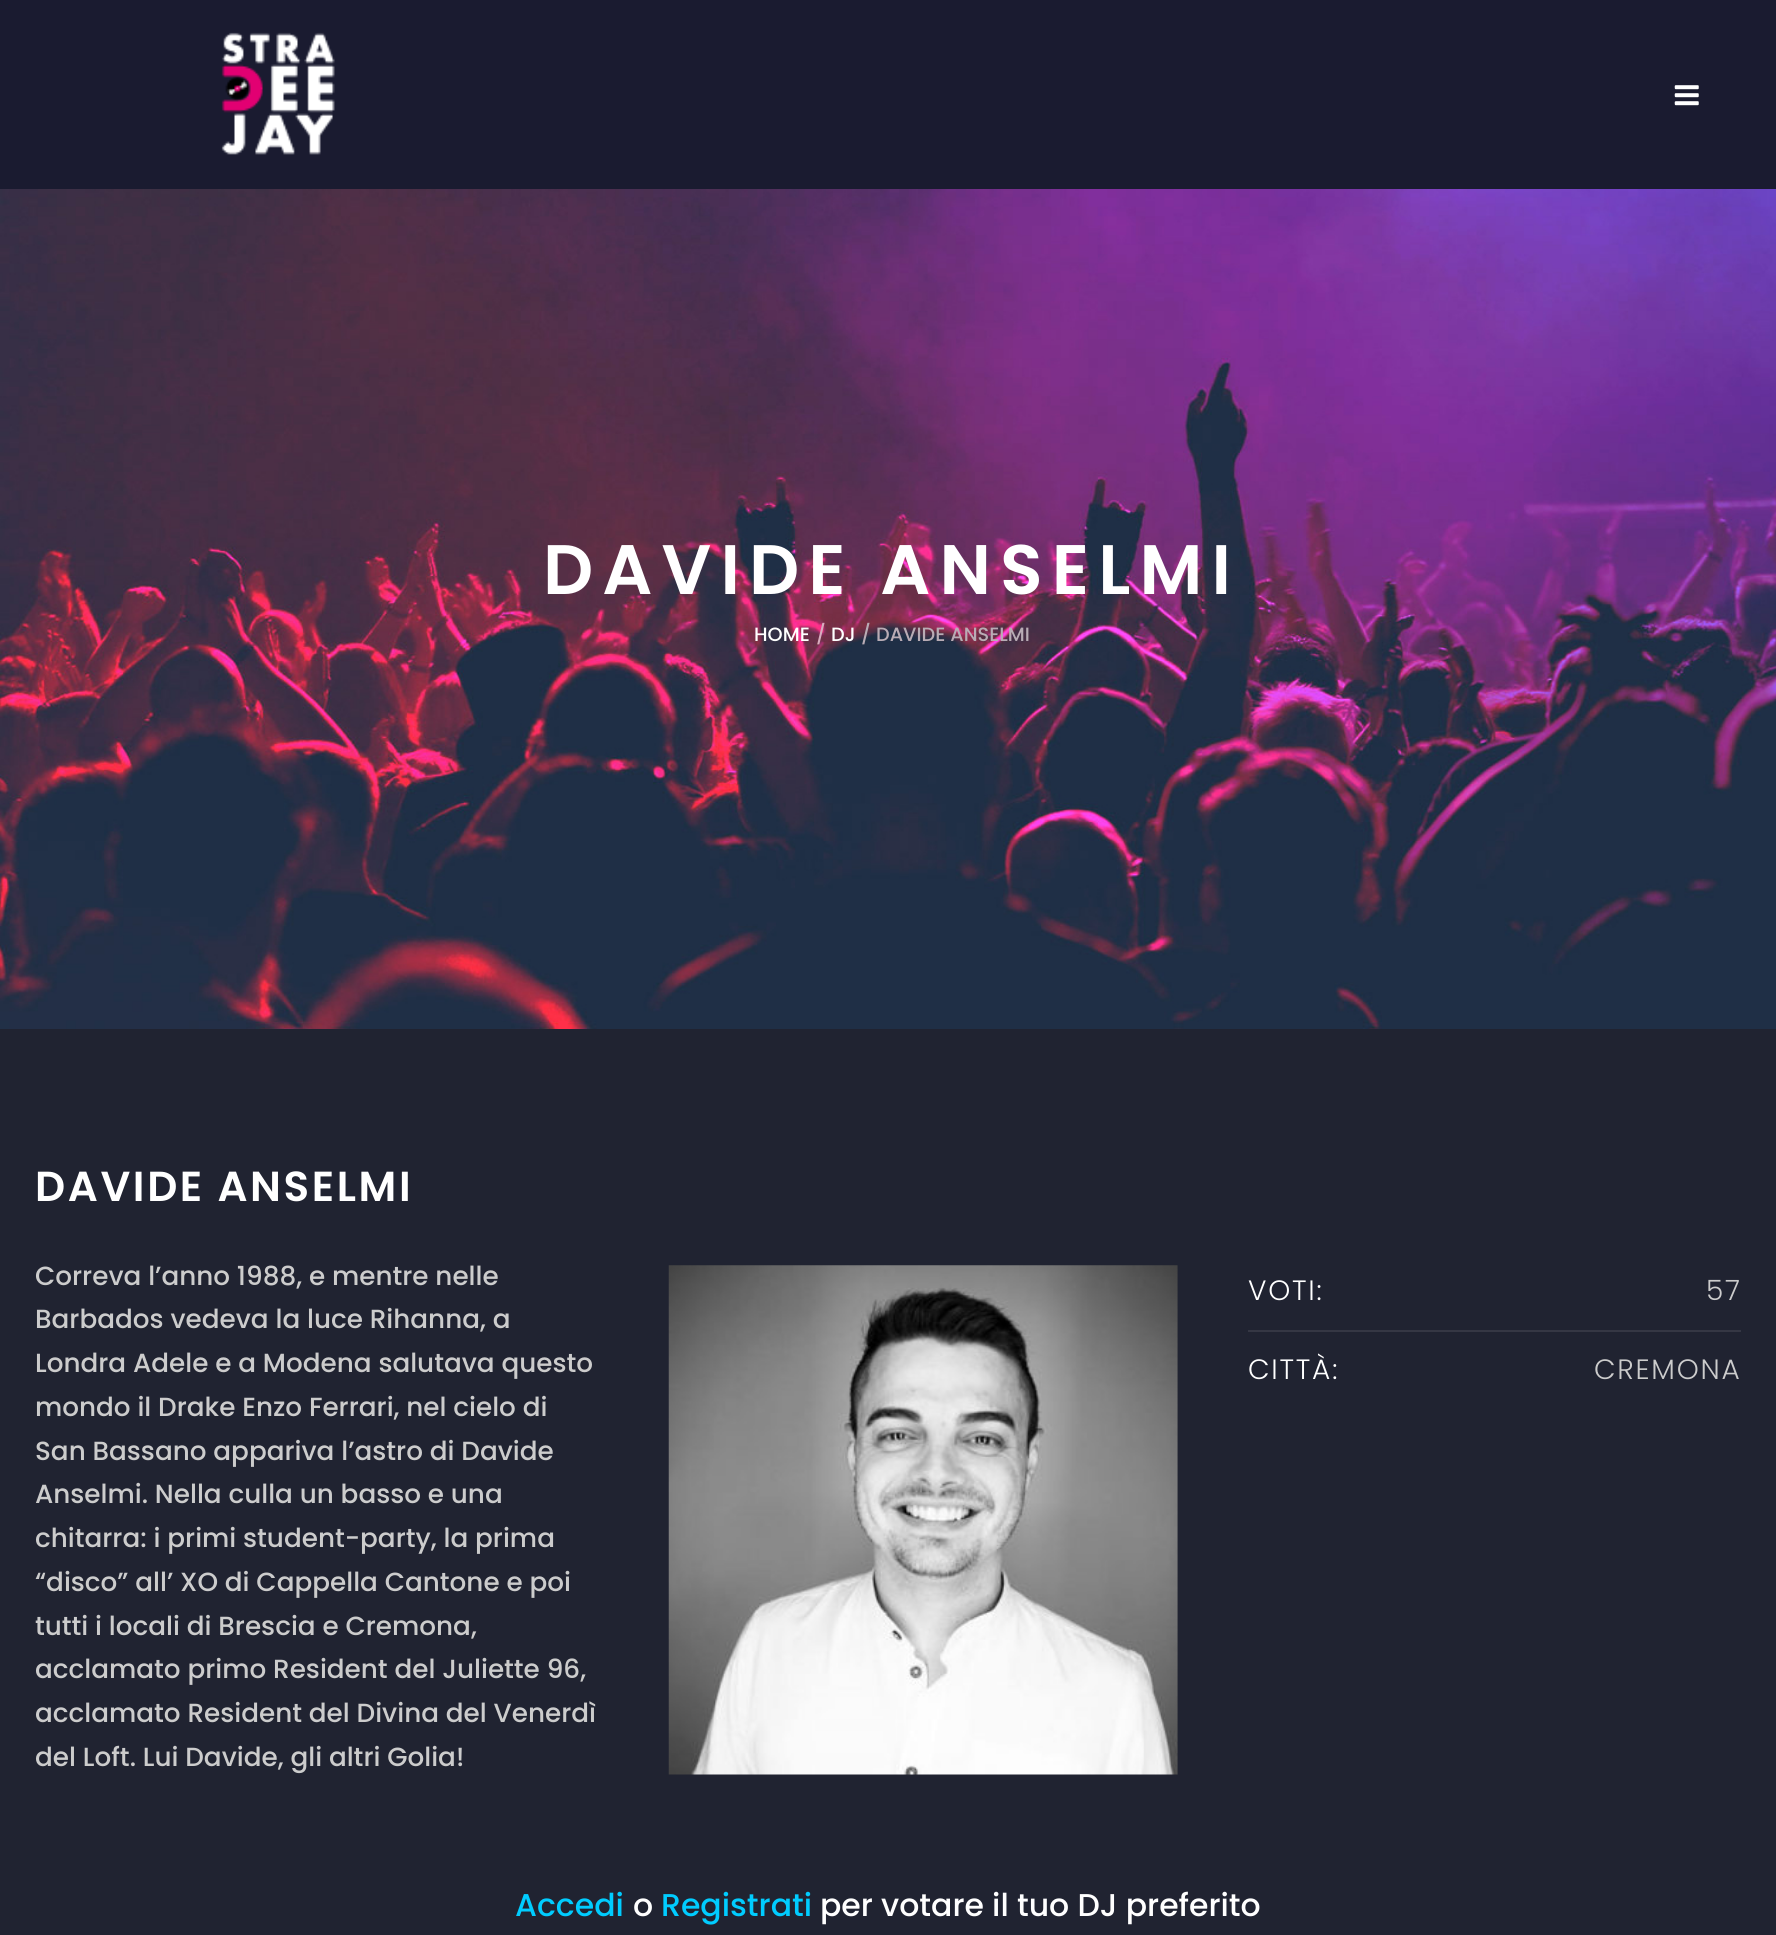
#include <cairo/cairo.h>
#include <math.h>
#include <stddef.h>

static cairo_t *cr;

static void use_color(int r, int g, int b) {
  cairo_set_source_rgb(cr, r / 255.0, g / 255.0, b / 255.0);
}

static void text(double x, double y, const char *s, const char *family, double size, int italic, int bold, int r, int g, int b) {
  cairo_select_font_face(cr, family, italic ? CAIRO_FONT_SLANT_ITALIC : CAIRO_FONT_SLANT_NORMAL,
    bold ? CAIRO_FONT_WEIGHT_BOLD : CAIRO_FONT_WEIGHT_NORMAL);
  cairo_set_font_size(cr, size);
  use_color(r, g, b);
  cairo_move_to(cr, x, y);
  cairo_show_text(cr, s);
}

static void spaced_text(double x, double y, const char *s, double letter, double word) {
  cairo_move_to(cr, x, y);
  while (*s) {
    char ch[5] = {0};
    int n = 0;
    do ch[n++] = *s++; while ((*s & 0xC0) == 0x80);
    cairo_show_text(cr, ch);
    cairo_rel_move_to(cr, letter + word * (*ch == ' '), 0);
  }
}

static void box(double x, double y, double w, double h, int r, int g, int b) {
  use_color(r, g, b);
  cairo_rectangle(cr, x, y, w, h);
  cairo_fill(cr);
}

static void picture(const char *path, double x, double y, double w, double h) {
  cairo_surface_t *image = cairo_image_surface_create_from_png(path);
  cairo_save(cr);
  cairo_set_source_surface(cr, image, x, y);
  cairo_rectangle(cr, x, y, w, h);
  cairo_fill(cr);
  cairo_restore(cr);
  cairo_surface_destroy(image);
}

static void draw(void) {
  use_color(32, 35, 49);
  cairo_paint(cr);
  box(0, 0, 1776, 189, 26, 27, 48);
  picture("img_01.png", 221, 32, 114, 123);
  picture("img_02.png", 1674, 85, 25, 21);
  picture("img_03.png", 0, 189, 1776, 840);
  picture("img_04.png", 668, 1265, 510, 510);
  box(1248, 1330, 493, 2, 53, 55, 68);
  cairo_select_font_face(cr, "Poppins SemiBold", CAIRO_FONT_SLANT_NORMAL, CAIRO_FONT_WEIGHT_NORMAL);
  cairo_set_font_size(cr, 70);
  use_color(255, 255, 255);
  spaced_text(543, 594, "DAVIDE ANSELMI", 9.1, 0);
  text(754, 641, "HOME", "Poppins Medium", 19.25, 0, 0, 255, 255, 255);
  text(816, 641, "/", "Poppins Medium", 19.25, 0, 0, 215, 172, 191);
  text(831, 641, "DJ", "Poppins Medium", 19.25, 0, 0, 255, 255, 255);
  text(861, 641, "/", "Poppins Medium", 19.25, 0, 0, 185, 172, 181);
  text(876, 641, "DAVIDE ANSELMI", "Poppins Medium", 19.25, 0, 0, 185, 172, 181);
  cairo_select_font_face(cr, "Poppins SemiBold", CAIRO_FONT_SLANT_NORMAL, CAIRO_FONT_WEIGHT_NORMAL);
  cairo_set_font_size(cr, 42);
  use_color(255, 255, 255);
  spaced_text(35, 1201, "DAVIDE ANSELMI", 2.6, 0);
  text(35, 1285, "Correva l’anno 1988, e mentre nelle", "Poppins Medium", 26.25, 0, 0, 204, 204, 204);
  text(35, 1328, "Barbados vedeva la luce Rihanna, a", "Poppins Medium", 26.25, 0, 0, 204, 204, 204);
  text(35, 1372, "Londra Adele e a Modena salutava questo", "Poppins Medium", 26.25, 0, 0, 204, 204, 204);
  text(35, 1416, "mondo il Drake Enzo Ferrari, nel cielo di", "Poppins Medium", 26.25, 0, 0, 204, 204, 204);
  text(35, 1460, "San Bassano appariva l’astro di Davide", "Poppins Medium", 26.25, 0, 0, 204, 204, 204);
  text(35, 1503, "Anselmi. Nella culla un basso e una", "Poppins Medium", 26.25, 0, 0, 204, 204, 204);
  text(35, 1547, "chitarra: i primi student-party, la prima", "Poppins Medium", 26.25, 0, 0, 204, 204, 204);
  text(35, 1591, "“disco” all’ XO di Cappella Cantone e poi", "Poppins Medium", 26.25, 0, 0, 204, 204, 204);
  text(35, 1635, "tutti i locali di Brescia e Cremona,", "Poppins Medium", 26.25, 0, 0, 204, 204, 204);
  text(35, 1678, "acclamato primo Resident del Juliette 96,", "Poppins Medium", 26.25, 0, 0, 204, 204, 204);
  text(35, 1722, "acclamato Resident del Divina del Venerdì", "Poppins Medium", 26.25, 0, 0, 204, 204, 204);
  text(35, 1766, "del Loft. Lui Davide, gli altri Golia!", "Poppins Medium", 26.25, 0, 0, 204, 204, 204);
  cairo_select_font_face(cr, "Poppins Light", CAIRO_FONT_SLANT_NORMAL, CAIRO_FONT_WEIGHT_NORMAL);
  cairo_set_font_size(cr, 28);
  use_color(255, 255, 255);
  spaced_text(1248, 1300, "VOTI:", 1.75, 0);
  use_color(204, 204, 204);
  spaced_text(1706, 1300, "57", 1.75, 0);
  use_color(255, 255, 255);
  spaced_text(1248, 1379, "CITTÀ:", 1.75, 0);
  use_color(204, 204, 204);
  spaced_text(1594, 1379, "CREMONA", 1.75, 0);
  text(515, 1916, "Accedi", "Poppins Medium", 31.5, 0, 0, 0, 204, 255);
  text(633, 1916, "o", "Poppins Medium", 31.5, 0, 0, 255, 255, 255);
  text(661, 1916, "Registrati", "Poppins Medium", 31.5, 0, 0, 0, 204, 255);
  text(820, 1916, "per votare il tuo DJ preferito", "Poppins Medium", 31.5, 0, 0, 255, 255, 255);
}

int main(void) {
  cairo_surface_t *surface = cairo_image_surface_create(CAIRO_FORMAT_RGB24, 1776, 1935);
  cr = cairo_create(surface);
  cairo_font_options_t *options = cairo_font_options_create();
  cairo_font_options_set_hint_metrics(options, CAIRO_HINT_METRICS_OFF);
  cairo_font_options_set_hint_style(options, CAIRO_HINT_STYLE_NONE);
  cairo_set_font_options(cr, options);
  cairo_set_miter_limit(cr, 4);
  draw();
  cairo_surface_write_to_png(surface, "out.png");
  cairo_font_options_destroy(options);
  cairo_destroy(cr);
  cairo_surface_destroy(surface);
  return 0;
}
